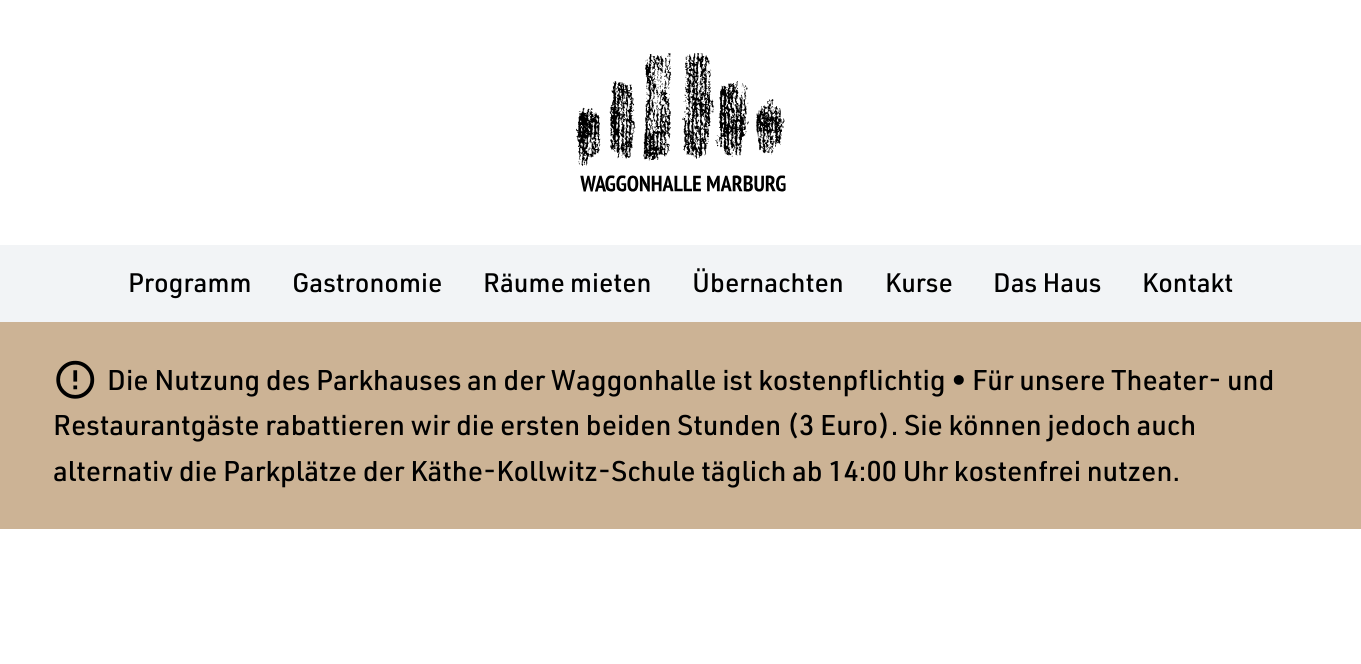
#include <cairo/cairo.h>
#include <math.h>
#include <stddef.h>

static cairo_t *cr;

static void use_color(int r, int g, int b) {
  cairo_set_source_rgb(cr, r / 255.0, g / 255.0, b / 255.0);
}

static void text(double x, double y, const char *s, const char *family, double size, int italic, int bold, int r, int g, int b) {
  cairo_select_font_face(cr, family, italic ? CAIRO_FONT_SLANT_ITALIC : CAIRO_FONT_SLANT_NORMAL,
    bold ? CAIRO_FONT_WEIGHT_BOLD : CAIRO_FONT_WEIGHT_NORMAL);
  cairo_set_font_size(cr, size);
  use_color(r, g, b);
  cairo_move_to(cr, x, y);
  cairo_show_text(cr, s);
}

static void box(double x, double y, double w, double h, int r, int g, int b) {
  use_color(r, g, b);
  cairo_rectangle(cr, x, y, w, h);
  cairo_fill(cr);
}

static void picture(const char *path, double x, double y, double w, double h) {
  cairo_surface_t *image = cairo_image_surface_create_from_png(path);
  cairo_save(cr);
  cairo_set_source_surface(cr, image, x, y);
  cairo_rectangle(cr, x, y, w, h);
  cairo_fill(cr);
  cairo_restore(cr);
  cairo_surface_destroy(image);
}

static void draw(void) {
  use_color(255, 255, 255);
  cairo_paint(cr);
  picture("img_01.png", 576, 53, 210, 139);
  box(0, 245, 1361, 77, 242, 244, 246);
  box(0, 322, 1361, 207, 204, 179, 149);
  picture("img_02.png", 56, 360, 39, 39);
  text(128, 292, "Programm", "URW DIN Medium", 26.25, 0, 0, 0, 0, 0);
  text(292, 292, "Gastronomie", "URW DIN Medium", 26.25, 0, 0, 0, 0, 0);
  text(483, 292, "Räume mieten", "URW DIN Medium", 26.25, 0, 0, 0, 0, 0);
  text(692, 292, "Übernachten", "URW DIN Medium", 26.25, 0, 0, 0, 0, 0);
  text(885, 292, "Kurse", "URW DIN Medium", 26.25, 0, 0, 0, 0, 0);
  text(993, 292, "Das Haus", "URW DIN Medium", 26.25, 0, 0, 0, 0, 0);
  text(1142, 292, "Kontakt", "URW DIN Medium", 26.25, 0, 0, 0, 0, 0);
  text(107, 390, "Die Nutzung des Parkhauses an der Waggonhalle ist kostenpflichtig • Für unsere Theater- und", "URW DIN Medium", 28, 0, 0, 0, 0, 0);
  text(53, 435, "Restaurantgäste rabattieren wir die ersten beiden Stunden (3 Euro). Sie können jedoch auch", "URW DIN Medium", 28, 0, 0, 0, 0, 0);
  text(53, 481, "alternativ die Parkplätze der Käthe-Kollwitz-Schule täglich ab 14:00 Uhr kostenfrei nutzen.", "URW DIN Medium", 28, 0, 0, 0, 0, 0);
}

int main(void) {
  cairo_surface_t *surface = cairo_image_surface_create(CAIRO_FORMAT_RGB24, 1361, 664);
  cr = cairo_create(surface);
  cairo_font_options_t *options = cairo_font_options_create();
  cairo_font_options_set_hint_metrics(options, CAIRO_HINT_METRICS_OFF);
  cairo_font_options_set_hint_style(options, CAIRO_HINT_STYLE_NONE);
  cairo_set_font_options(cr, options);
  cairo_set_miter_limit(cr, 4);
  draw();
  cairo_surface_write_to_png(surface, "out.png");
  cairo_font_options_destroy(options);
  cairo_destroy(cr);
  cairo_surface_destroy(surface);
  return 0;
}
